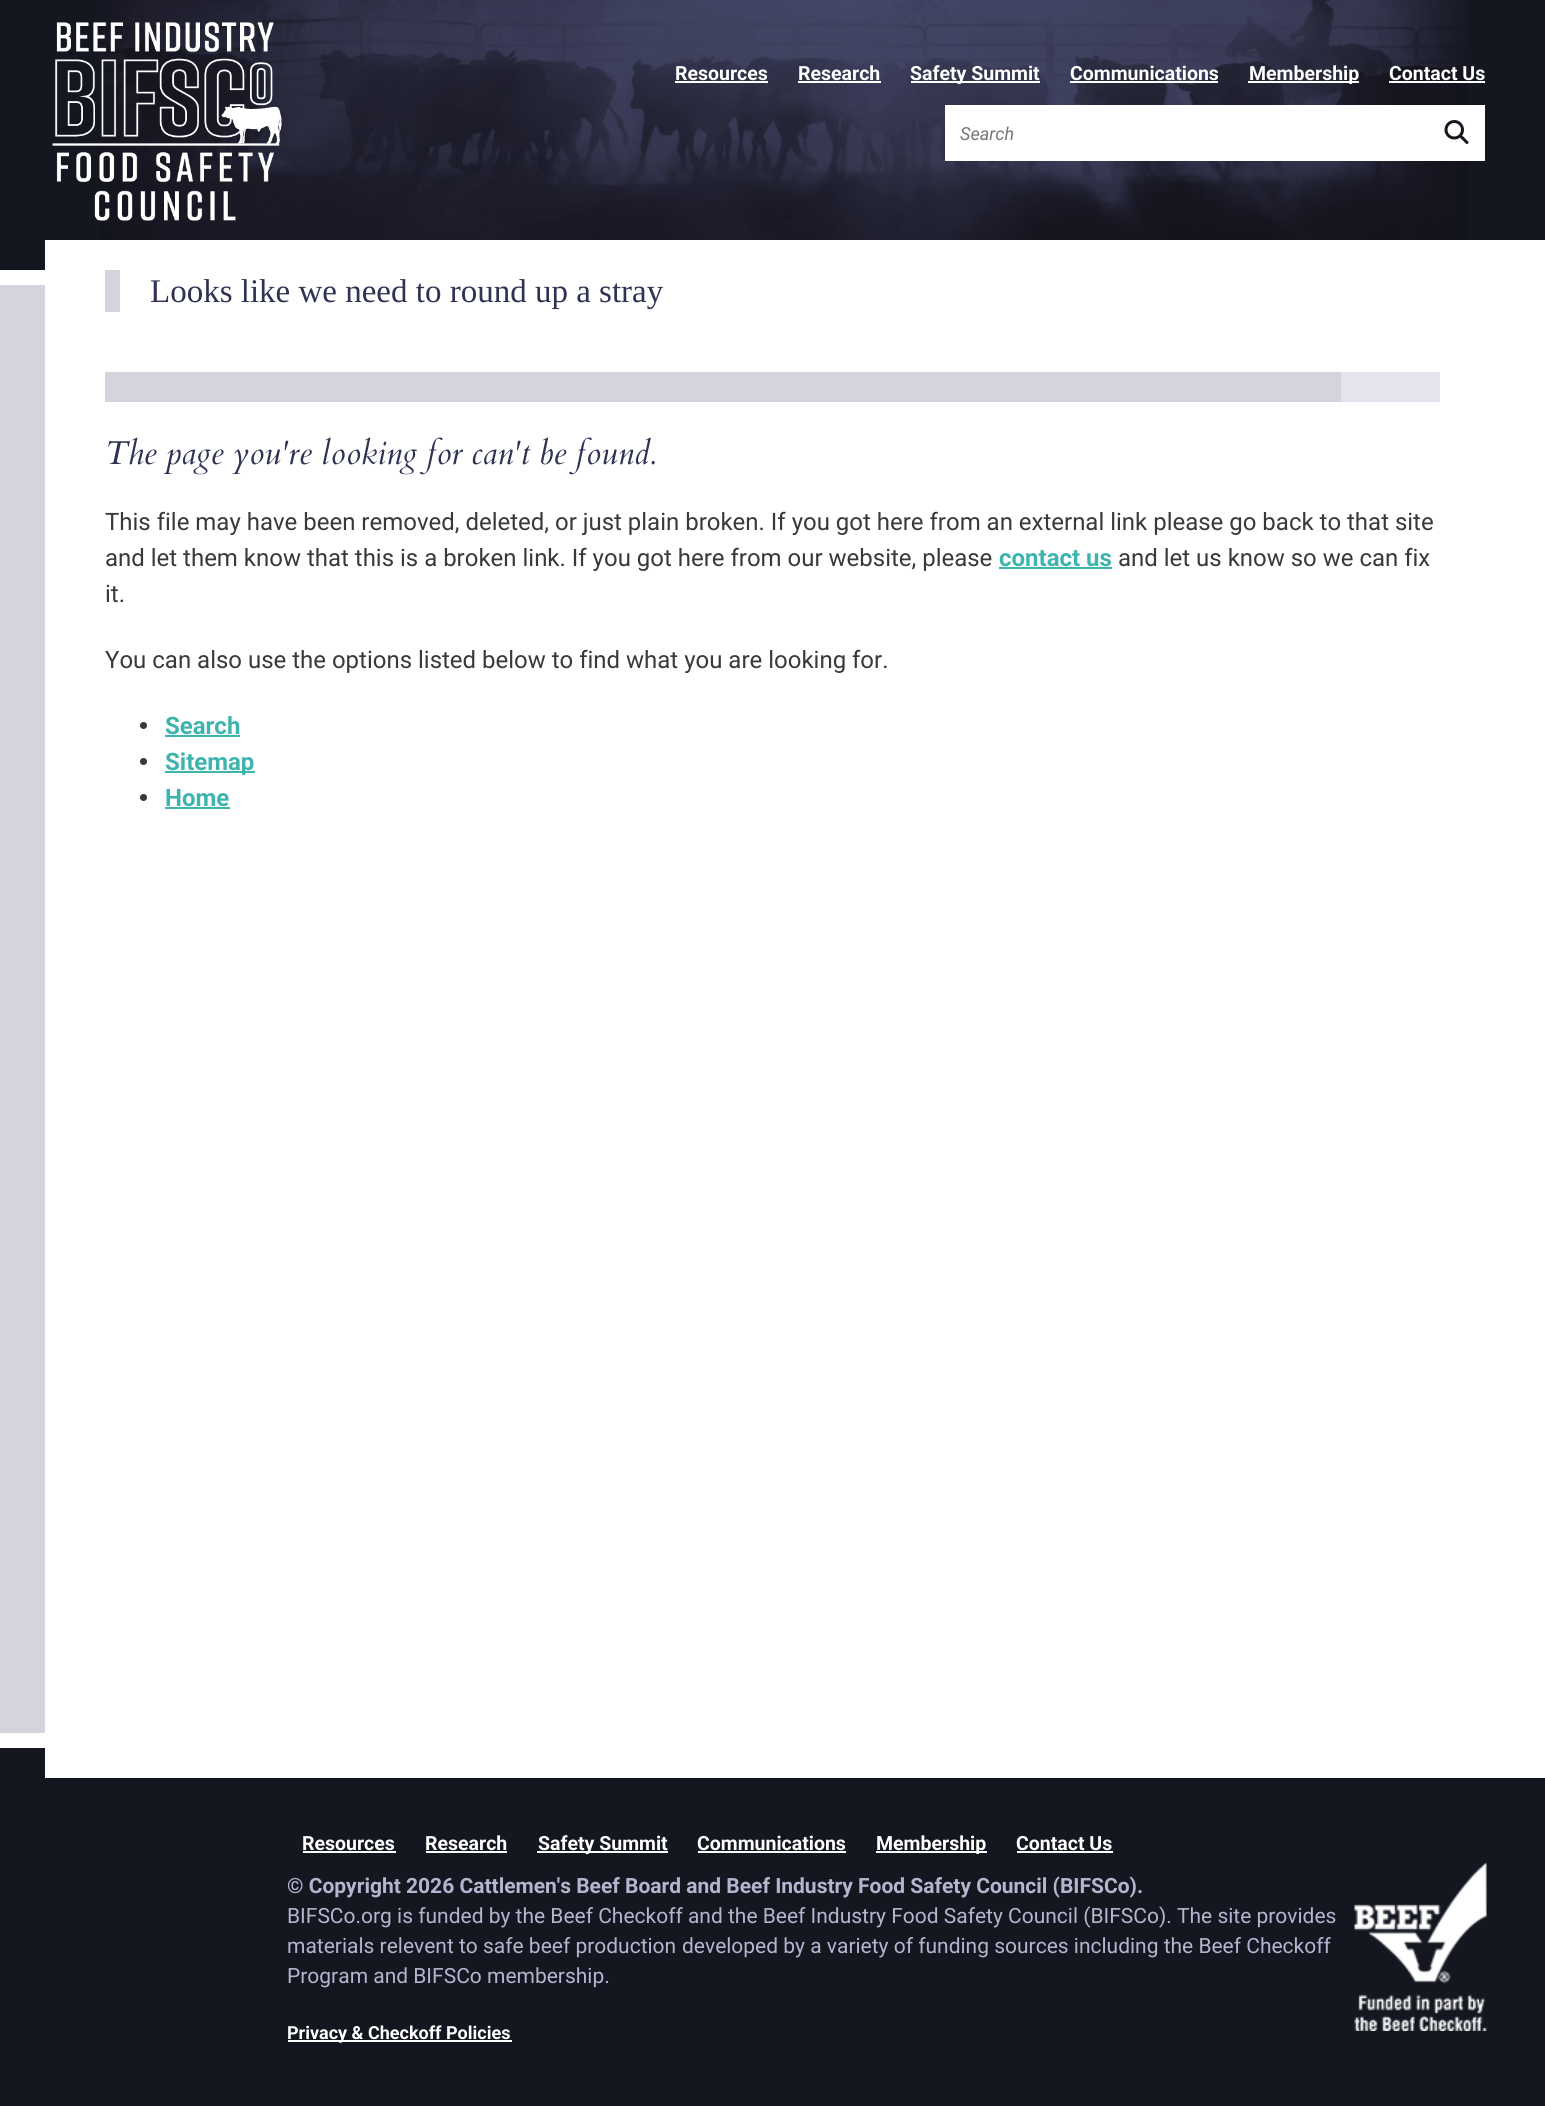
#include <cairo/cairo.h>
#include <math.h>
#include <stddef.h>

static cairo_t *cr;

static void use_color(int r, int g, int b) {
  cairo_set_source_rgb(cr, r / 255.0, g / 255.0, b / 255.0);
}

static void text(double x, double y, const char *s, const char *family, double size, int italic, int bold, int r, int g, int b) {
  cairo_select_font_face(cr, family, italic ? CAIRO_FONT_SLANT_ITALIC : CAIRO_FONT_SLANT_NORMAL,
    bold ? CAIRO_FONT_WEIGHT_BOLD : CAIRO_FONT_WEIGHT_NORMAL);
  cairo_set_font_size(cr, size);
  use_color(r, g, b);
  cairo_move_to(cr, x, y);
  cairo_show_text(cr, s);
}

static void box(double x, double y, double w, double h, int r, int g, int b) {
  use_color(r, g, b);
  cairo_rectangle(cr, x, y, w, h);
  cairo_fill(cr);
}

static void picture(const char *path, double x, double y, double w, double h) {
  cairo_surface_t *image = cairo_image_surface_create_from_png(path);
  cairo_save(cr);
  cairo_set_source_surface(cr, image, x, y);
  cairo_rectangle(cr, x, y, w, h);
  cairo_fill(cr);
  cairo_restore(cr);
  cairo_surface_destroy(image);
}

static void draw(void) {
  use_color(211, 212, 221);
  cairo_paint(cr);
  box(0, 0, 1545, 240, 20, 23, 32);
  picture("img_01.png", 99, 0, 1370, 240);
  picture("img_02.png", 52, 21, 230, 200);
  box(675, 81, 93, 2, 255, 255, 255);
  box(798, 81, 83, 2, 255, 255, 255);
  box(911, 81, 129, 2, 255, 255, 255);
  box(1070, 81, 148, 2, 255, 255, 255);
  box(1248, 81, 111, 2, 255, 255, 255);
  box(1389, 81, 96, 2, 255, 255, 255);
  box(945, 105, 540, 56, 255, 255, 255);
  picture("img_03.png", 1444, 120, 25, 24);
  box(0, 240, 45, 30, 20, 23, 32);
  box(0, 270, 45, 15, 255, 255, 255);
  box(45, 240, 1500, 1538, 255, 255, 255);
  box(105, 270, 15, 42, 211, 212, 221);
  picture("img_04.png", 105, 372, 1335, 30);
  box(999, 567, 113, 2, 61, 180, 174);
  use_color(57, 57, 57);
  cairo_arc(cr, 143.5, 725.5, 3.5, 0, 2 * M_PI);
  cairo_fill(cr);
  box(165, 735, 75, 2, 61, 180, 174);
  use_color(57, 57, 57);
  cairo_arc(cr, 143.5, 761.5, 3.5, 0, 2 * M_PI);
  cairo_fill(cr);
  box(165, 771, 90, 2, 61, 180, 174);
  use_color(57, 57, 57);
  cairo_arc(cr, 143.5, 797.5, 3.5, 0, 2 * M_PI);
  cairo_fill(cr);
  box(165, 807, 65, 2, 61, 180, 174);
  box(0, 1778, 1545, 328, 20, 23, 32);
  box(0, 1748, 45, 30, 20, 23, 32);
  box(0, 1733, 45, 15, 255, 255, 255);
  box(303, 1851, 93, 2, 255, 255, 255);
  box(426, 1851, 81, 2, 255, 255, 255);
  box(537, 1851, 131, 2, 255, 255, 255);
  box(698, 1851, 148, 2, 255, 255, 255);
  box(876, 1851, 111, 2, 255, 255, 255);
  box(1017, 1851, 96, 2, 255, 255, 255);
  box(288, 2040, 224, 2, 255, 255, 255);
  picture("img_05.png", 1354, 1862, 133, 169);
  text(675, 80, "Resources", "Roboto", 19.5, 0, 1, 255, 255, 255);
  text(798, 80, "Research", "Roboto", 19.5, 0, 1, 255, 255, 255);
  text(910, 80, "Safety Summit", "Roboto", 19.5, 0, 1, 255, 255, 255);
  text(1070, 80, "Communications", "Roboto", 19.5, 0, 1, 255, 255, 255);
  text(1249, 80, "Membership", "Roboto", 19.5, 0, 1, 255, 255, 255);
  text(1389, 80, "Contact Us", "Roboto", 19.5, 0, 1, 255, 255, 255);
  text(960, 140, "Search", "Roboto", 18, 1, 0, 117, 117, 117);
  text(150, 302, "Looks like we need to round up a stray", "Liberation Serif", 33, 0, 0, 47, 50, 83);
  text(105, 464, "The page you're looking for can't be found.", "Cardo", 33, 1, 0, 47, 50, 83);
  text(105, 530, "This file may have been removed, deleted, or just plain broken. If you got here from an external link please go back to that site", "Roboto", 24, 0, 0, 57, 57, 57);
  text(105, 566, "and let them know that this is a broken link. If you got here from our website, please", "Roboto", 24, 0, 0, 57, 57, 57);
  text(999, 566, "contact us", "Roboto", 24, 0, 1, 61, 180, 174);
  text(1118, 566, "and let us know so we can fix", "Roboto", 24, 0, 0, 57, 57, 57);
  text(105, 602, "it.", "Roboto", 24, 0, 0, 57, 57, 57);
  text(105, 668, "You can also use the options listed below to find what you are looking for.", "Roboto", 24, 0, 0, 57, 57, 57);
  text(165, 734, "Search", "Roboto", 24, 0, 1, 61, 180, 174);
  text(165, 770, "Sitemap", "Roboto", 24, 0, 1, 61, 180, 174);
  text(165, 806, "Home", "Roboto", 24, 0, 1, 61, 180, 174);
  text(302, 1850, "Resources", "Roboto", 19.5, 0, 1, 255, 255, 255);
  text(425, 1850, "Research", "Roboto", 19.5, 0, 1, 255, 255, 255);
  text(538, 1850, "Safety Summit", "Roboto", 19.5, 0, 1, 255, 255, 255);
  text(697, 1850, "Communications", "Roboto", 19.5, 0, 1, 255, 255, 255);
  text(876, 1850, "Membership", "Roboto", 19.5, 0, 1, 255, 255, 255);
  text(1016, 1850, "Contact Us", "Roboto", 19.5, 0, 1, 255, 255, 255);
  text(287, 1893, "© Copyright 2026 Cattlemen's Beef Board and Beef Industry Food Safety Council (BIFSCo).", "Roboto", 21, 0, 1, 180, 182, 207);
  text(287, 1923, "BIFSCo.org is funded by the Beef Checkoff and the Beef Industry Food Safety Council (BIFSCo). The site provides", "Roboto", 21, 0, 0, 180, 182, 207);
  text(287, 1953, "materials relevent to safe beef production", "Roboto", 21, 0, 0, 180, 182, 207);
  text(682, 1953, "developed by a variety of funding sources including the Beef Checkoff", "Roboto", 21, 0, 0, 180, 182, 207);
  text(287, 1983, "Program and BIFSCo membership.", "Roboto", 21, 0, 0, 180, 182, 207);
  text(287, 2039, "Privacy & Checkoff Policies", "Roboto", 18, 0, 1, 255, 255, 255);
}

int main(void) {
  cairo_surface_t *surface = cairo_image_surface_create(CAIRO_FORMAT_RGB24, 1545, 2106);
  cr = cairo_create(surface);
  cairo_font_options_t *options = cairo_font_options_create();
  cairo_font_options_set_hint_metrics(options, CAIRO_HINT_METRICS_OFF);
  cairo_font_options_set_hint_style(options, CAIRO_HINT_STYLE_NONE);
  cairo_set_font_options(cr, options);
  cairo_set_miter_limit(cr, 4);
  draw();
  cairo_surface_write_to_png(surface, "out.png");
  cairo_font_options_destroy(options);
  cairo_destroy(cr);
  cairo_surface_destroy(surface);
  return 0;
}
